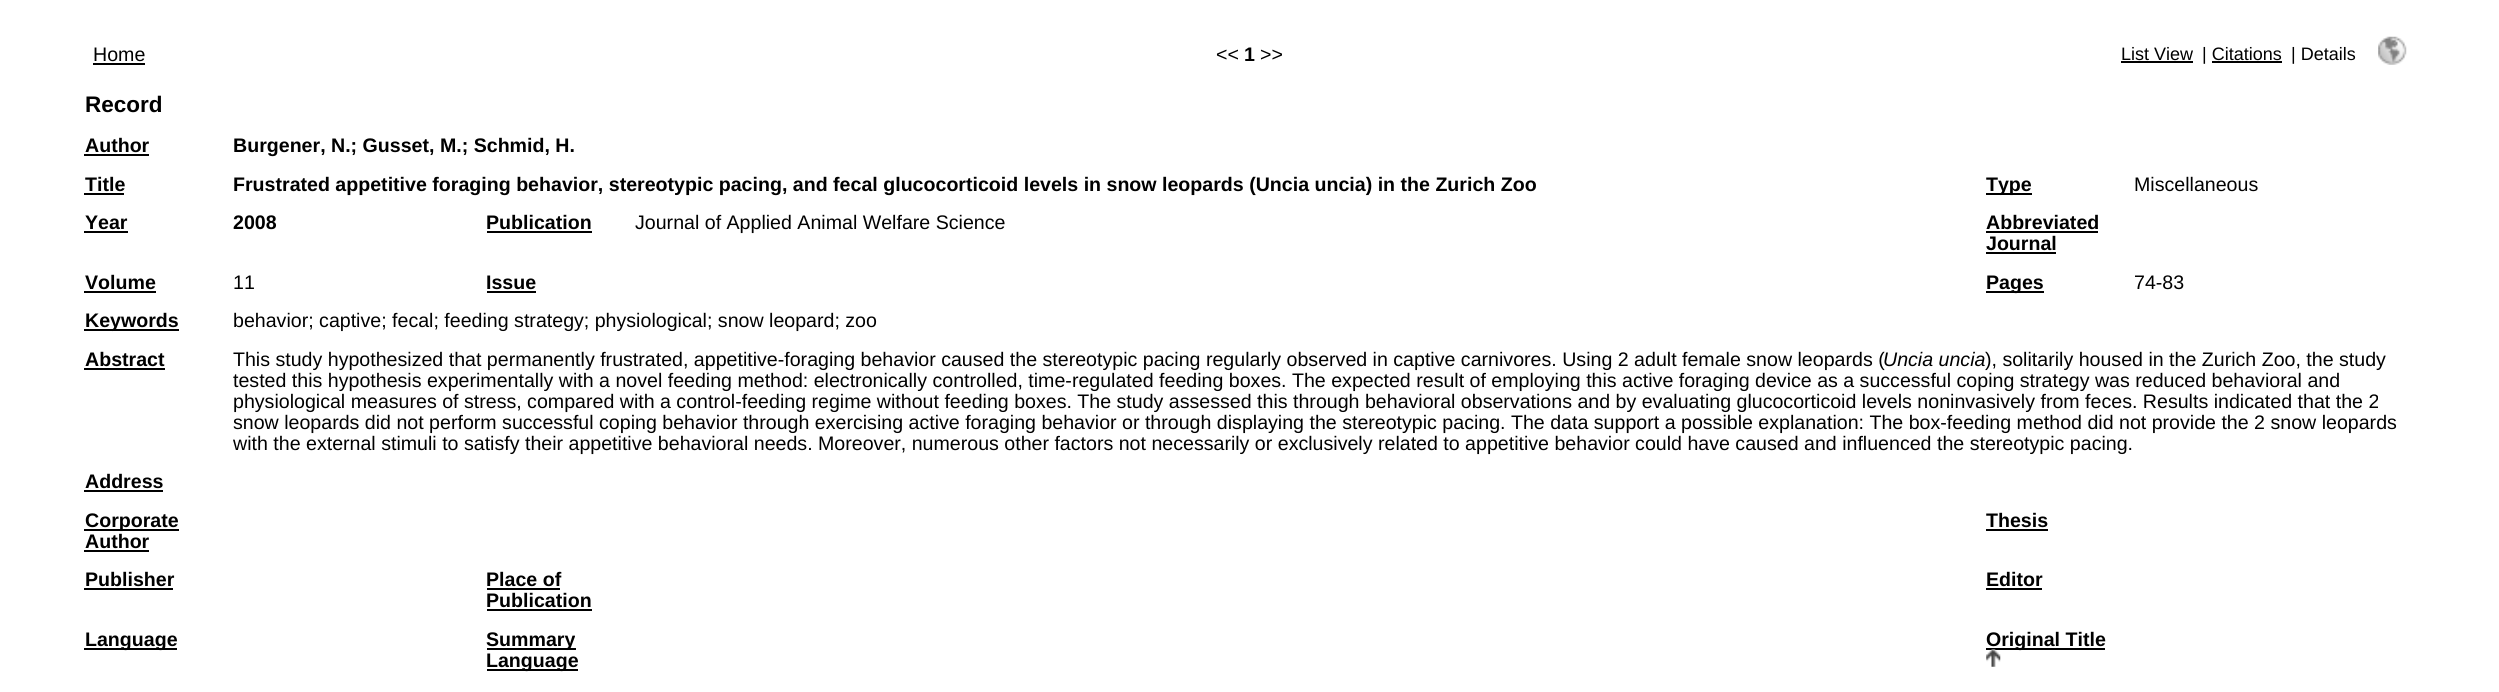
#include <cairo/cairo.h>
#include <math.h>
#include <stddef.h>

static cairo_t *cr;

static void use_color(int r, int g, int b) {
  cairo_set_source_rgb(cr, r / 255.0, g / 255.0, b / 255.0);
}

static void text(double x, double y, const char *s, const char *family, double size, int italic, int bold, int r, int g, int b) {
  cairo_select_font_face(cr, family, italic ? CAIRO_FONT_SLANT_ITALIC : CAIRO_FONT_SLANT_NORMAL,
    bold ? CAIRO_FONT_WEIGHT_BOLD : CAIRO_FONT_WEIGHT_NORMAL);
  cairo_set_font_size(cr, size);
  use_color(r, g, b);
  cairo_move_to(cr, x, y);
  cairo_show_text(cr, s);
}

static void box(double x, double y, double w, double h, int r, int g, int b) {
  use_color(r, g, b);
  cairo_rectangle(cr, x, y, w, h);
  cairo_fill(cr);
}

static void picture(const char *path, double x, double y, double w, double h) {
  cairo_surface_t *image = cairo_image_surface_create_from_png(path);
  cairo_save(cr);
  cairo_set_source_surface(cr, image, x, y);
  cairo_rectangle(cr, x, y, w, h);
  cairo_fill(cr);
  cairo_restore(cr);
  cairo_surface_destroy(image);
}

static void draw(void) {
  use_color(255, 255, 255);
  cairo_paint(cr);
  box(93, 63, 52, 2, 0, 0, 0);
  box(2121, 61, 72, 2, 0, 0, 0);
  box(2212, 61, 70, 2, 0, 0, 0);
  picture("img_01.png", 2378, 36, 29, 29);
  box(84, 154, 65, 2, 0, 0, 0);
  box(84, 193, 40, 2, 0, 0, 0);
  box(1986, 193, 46, 2, 0, 0, 0);
  box(84, 231, 44, 2, 0, 0, 0);
  box(487, 231, 105, 2, 0, 0, 0);
  box(1986, 231, 112, 2, 0, 0, 0);
  box(1986, 252, 70, 2, 0, 0, 0);
  box(84, 291, 72, 2, 0, 0, 0);
  box(487, 291, 49, 2, 0, 0, 0);
  box(1986, 291, 58, 2, 0, 0, 0);
  box(84, 329, 95, 2, 0, 0, 0);
  box(84, 368, 81, 2, 0, 0, 0);
  box(84, 490, 79, 2, 0, 0, 0);
  box(84, 529, 95, 2, 0, 0, 0);
  box(84, 550, 65, 2, 0, 0, 0);
  box(1986, 529, 62, 2, 0, 0, 0);
  box(84, 588, 89, 2, 0, 0, 0);
  box(487, 588, 73, 2, 0, 0, 0);
  box(487, 609, 105, 2, 0, 0, 0);
  box(1986, 588, 56, 2, 0, 0, 0);
  box(84, 648, 93, 2, 0, 0, 0);
  box(487, 648, 89, 2, 0, 0, 0);
  box(487, 669, 91, 2, 0, 0, 0);
  box(1986, 648, 119, 2, 0, 0, 0);
  text(93, 61, "Home", "Liberation Sans", 19.6, 0, 0, 0, 0, 0);
  text(1216, 61, "<<", "Liberation Sans", 19.6, 0, 0, 0, 0, 0);
  text(1244, 61, "1", "Liberation Sans", 19.6, 0, 1, 0, 0, 0);
  text(1260, 61, ">>", "Liberation Sans", 19.6, 0, 0, 0, 0, 0);
  text(2121, 60, "List View", "Liberation Sans", 18, 0, 0, 0, 0, 0);
  text(2202, 60, "| Citations", "Liberation Sans", 18, 0, 0, 0, 0, 0);
  text(2291, 60, "| Details", "Liberation Sans", 18, 0, 0, 0, 0, 0);
  text(85, 112, "Record", "Liberation Sans", 22.5, 0, 1, 0, 0, 0);
  text(85, 152, "Author", "Liberation Sans", 19.6, 0, 1, 0, 0, 0);
  text(233, 152, "Burgener, N.; Gusset, M.; Schmid, H.", "Liberation Sans", 19.6, 0, 1, 0, 0, 0);
  text(85, 191, "Title", "Liberation Sans", 19.6, 0, 1, 0, 0, 0);
  text(233, 191, "Frustrated appetitive foraging behavior, stereotypic pacing, and fecal glucocorticoid levels in snow leopards (Uncia uncia) in the Zurich Zoo", "Liberation Sans", 19.6, 0, 1, 0, 0, 0);
  text(1986, 191, "Type", "Liberation Sans", 19.6, 0, 1, 0, 0, 0);
  text(2134, 191, "Miscellaneous", "Liberation Sans", 19.6, 0, 0, 0, 0, 0);
  text(85, 229, "Year", "Liberation Sans", 19.6, 0, 1, 0, 0, 0);
  text(233, 229, "2008", "Liberation Sans", 19.6, 0, 1, 0, 0, 0);
  text(486, 229, "Publication", "Liberation Sans", 19.6, 0, 1, 0, 0, 0);
  text(635, 229, "Journal of Applied Animal Welfare Science", "Liberation Sans", 19.6, 0, 0, 0, 0, 0);
  text(1986, 229, "Abbreviated", "Liberation Sans", 19.6, 0, 1, 0, 0, 0);
  text(1986, 250, "Journal", "Liberation Sans", 19.6, 0, 1, 0, 0, 0);
  text(85, 289, "Volume", "Liberation Sans", 19.6, 0, 1, 0, 0, 0);
  text(233, 289, "11", "Liberation Sans", 19.6, 0, 0, 0, 0, 0);
  text(486, 289, "Issue", "Liberation Sans", 19.6, 0, 1, 0, 0, 0);
  text(1986, 289, "Pages", "Liberation Sans", 19.6, 0, 1, 0, 0, 0);
  text(2134, 289, "74-83", "Liberation Sans", 19.6, 0, 0, 0, 0, 0);
  text(85, 327, "Keywords", "Liberation Sans", 19.6, 0, 1, 0, 0, 0);
  text(233, 327, "behavior; captive; fecal; feeding strategy; physiological; snow leopard; zoo", "Liberation Sans", 19.6, 0, 0, 0, 0, 0);
  text(85, 366, "Abstract", "Liberation Sans", 19.6, 0, 1, 0, 0, 0);
  text(233, 366, "This study hypothesized that permanently frustrated, appetitive-foraging behavior caused the stereotypic pacing regularly observed in captive carnivores. Using 2 adult female snow leopards (", "Liberation Sans", 19.6, 0, 0, 0, 0, 0);
  text(1883, 366, "Uncia uncia", "Liberation Sans", 19.6, 1, 0, 0, 0, 0);
  text(1985, 366, "), solitarily housed in the Zurich Zoo, the study", "Liberation Sans", 19.6, 0, 0, 0, 0, 0);
  text(233, 387, "tested this hypothesis experimentally with a novel feeding method: electronically controlled, time-regulated feeding boxes. The expected result of employing this active foraging device as a successful coping strategy was reduced behavioral and", "Liberation Sans", 19.6, 0, 0, 0, 0, 0);
  text(233, 408, "physiological measures of stress, compared with a control-feeding regime without feeding boxes. The study assessed this through behavioral observations and by evaluating glucocorticoid levels noninvasively from feces. Results indicated that the 2", "Liberation Sans", 19.6, 0, 0, 0, 0, 0);
  text(233, 429, "snow leopards did not perform successful coping behavior through exercising active foraging behavior or through displaying the stereotypic pacing. The data support a possible explanation: The box-feeding method did not provide the 2 snow leopards", "Liberation Sans", 19.6, 0, 0, 0, 0, 0);
  text(233, 450, "with the external stimuli to satisfy their appetitive behavioral needs. Moreover, numerous other factors not necessarily or exclusively related to appetitive behavior could have caused and influenced the stereotypic pacing.", "Liberation Sans", 19.6, 0, 0, 0, 0, 0);
  text(85, 488, "Address", "Liberation Sans", 19.6, 0, 1, 0, 0, 0);
  text(85, 527, "Corporate", "Liberation Sans", 19.6, 0, 1, 0, 0, 0);
  text(85, 548, "Author", "Liberation Sans", 19.6, 0, 1, 0, 0, 0);
  text(1986, 527, "Thesis", "Liberation Sans", 19.6, 0, 1, 0, 0, 0);
  text(85, 586, "Publisher", "Liberation Sans", 19.6, 0, 1, 0, 0, 0);
  text(486, 586, "Place of", "Liberation Sans", 19.6, 0, 1, 0, 0, 0);
  text(486, 607, "Publication", "Liberation Sans", 19.6, 0, 1, 0, 0, 0);
  text(1986, 586, "Editor", "Liberation Sans", 19.6, 0, 1, 0, 0, 0);
  text(85, 646, "Language", "Liberation Sans", 19.6, 0, 1, 0, 0, 0);
  text(486, 646, "Summary", "Liberation Sans", 19.6, 0, 1, 0, 0, 0);
  text(486, 667, "Language", "Liberation Sans", 19.6, 0, 1, 0, 0, 0);
  text(1986, 646, "Original Title", "Liberation Sans", 19.6, 0, 1, 0, 0, 0);
  picture("img_02.png", 1986, 649, 15, 18);
}

int main(void) {
  cairo_surface_t *surface = cairo_image_surface_create(CAIRO_FORMAT_RGB24, 2499, 692);
  cr = cairo_create(surface);
  cairo_font_options_t *options = cairo_font_options_create();
  cairo_font_options_set_hint_metrics(options, CAIRO_HINT_METRICS_OFF);
  cairo_font_options_set_hint_style(options, CAIRO_HINT_STYLE_NONE);
  cairo_set_font_options(cr, options);
  cairo_set_miter_limit(cr, 4);
  draw();
  cairo_surface_write_to_png(surface, "out.png");
  cairo_font_options_destroy(options);
  cairo_destroy(cr);
  cairo_surface_destroy(surface);
  return 0;
}
